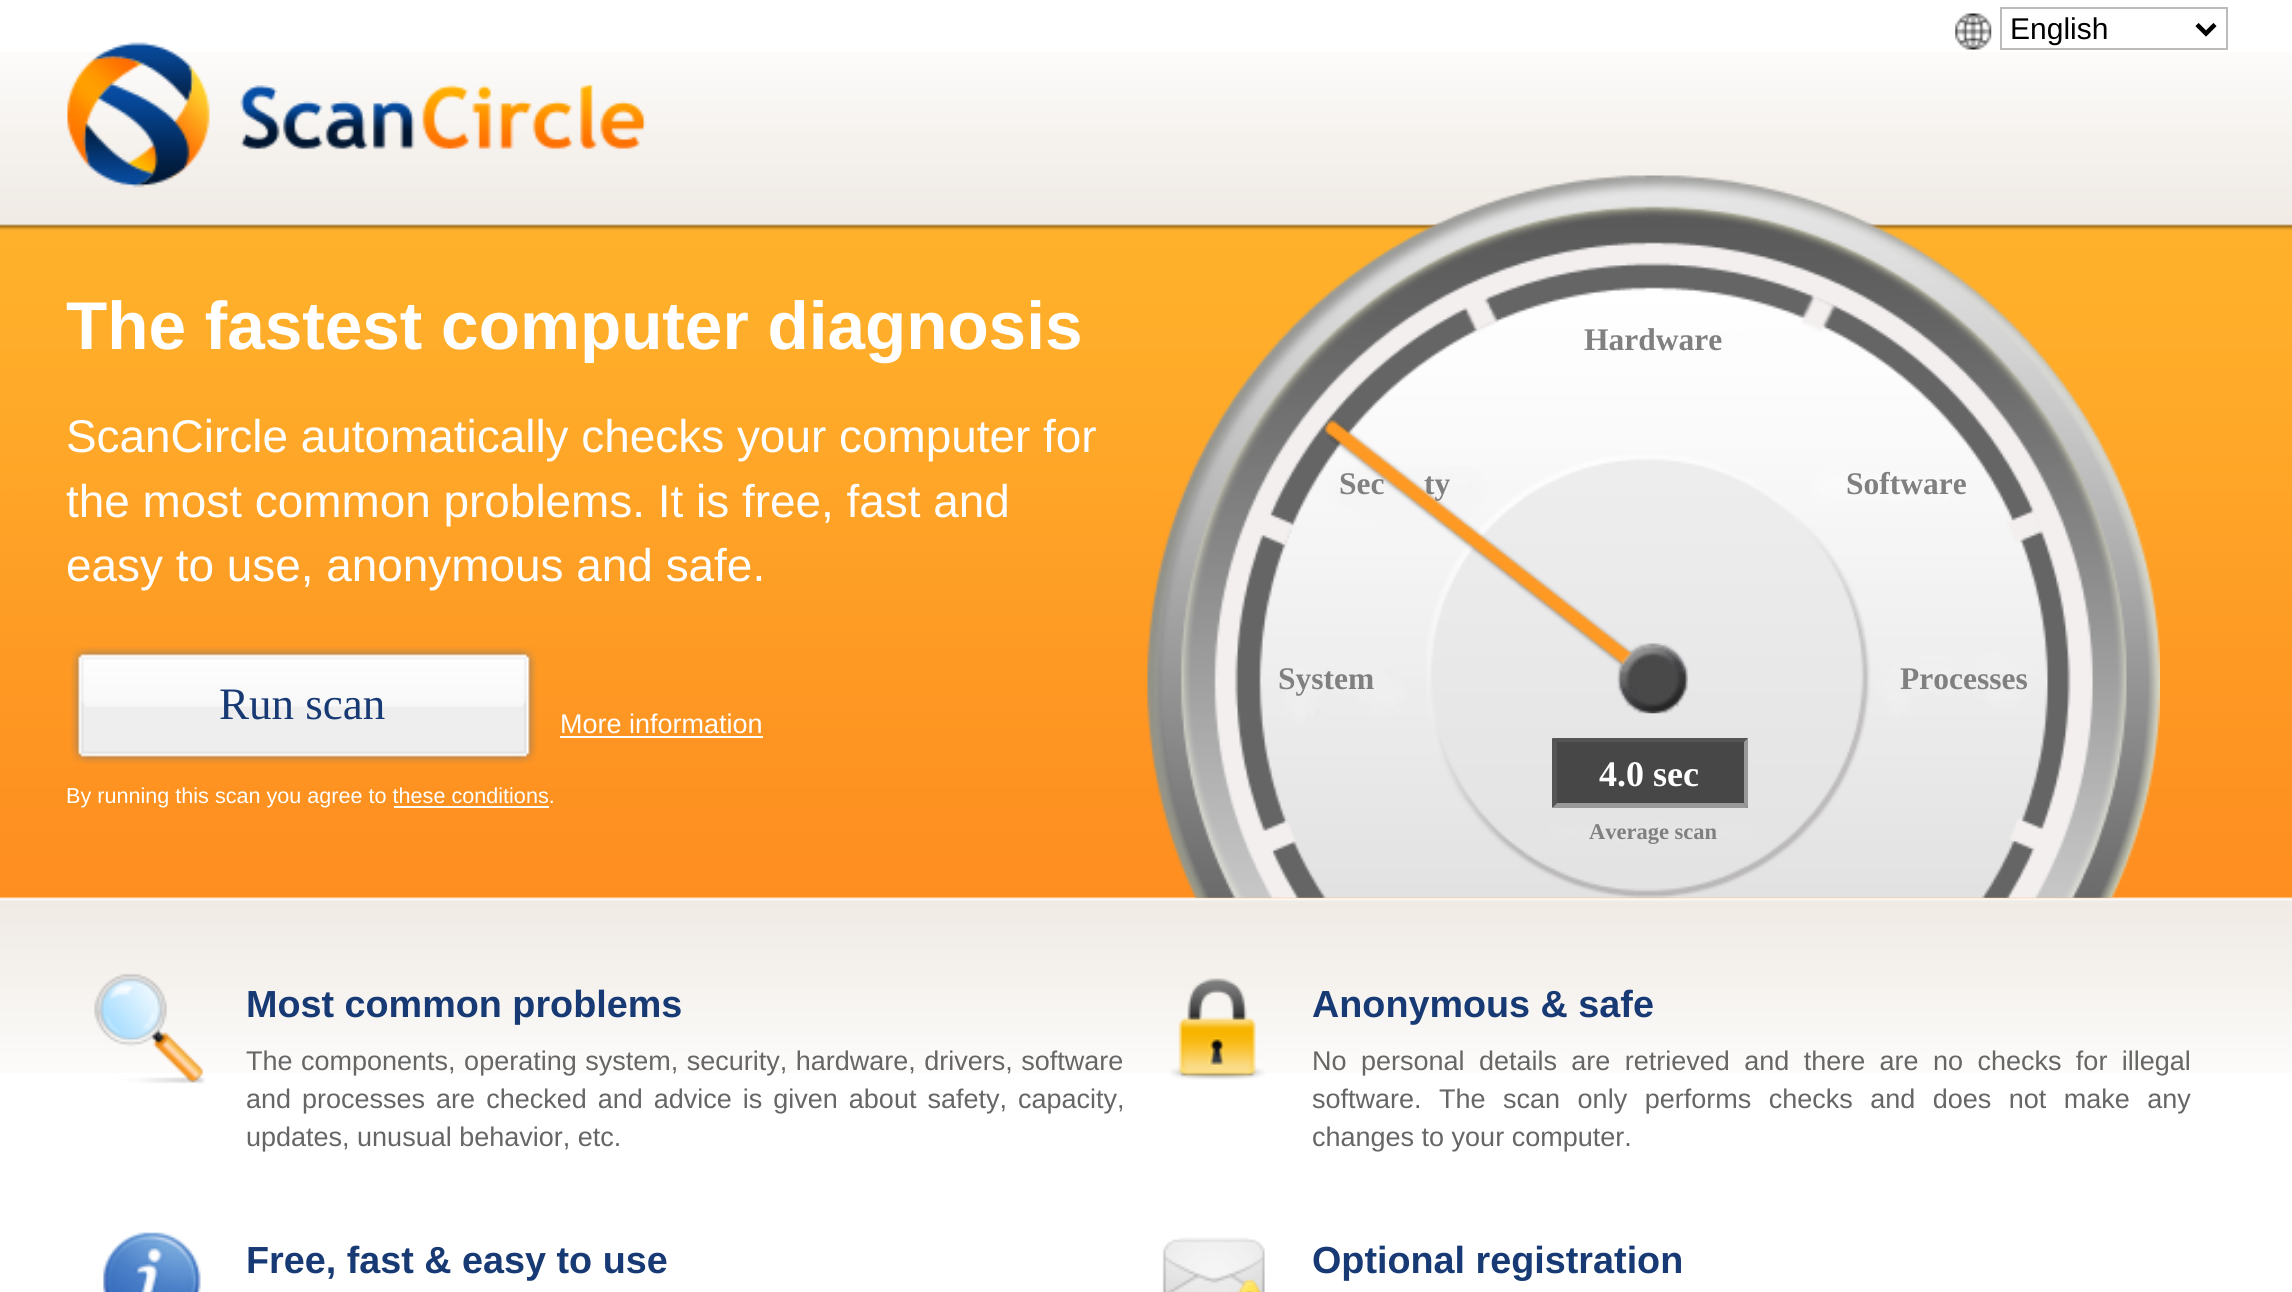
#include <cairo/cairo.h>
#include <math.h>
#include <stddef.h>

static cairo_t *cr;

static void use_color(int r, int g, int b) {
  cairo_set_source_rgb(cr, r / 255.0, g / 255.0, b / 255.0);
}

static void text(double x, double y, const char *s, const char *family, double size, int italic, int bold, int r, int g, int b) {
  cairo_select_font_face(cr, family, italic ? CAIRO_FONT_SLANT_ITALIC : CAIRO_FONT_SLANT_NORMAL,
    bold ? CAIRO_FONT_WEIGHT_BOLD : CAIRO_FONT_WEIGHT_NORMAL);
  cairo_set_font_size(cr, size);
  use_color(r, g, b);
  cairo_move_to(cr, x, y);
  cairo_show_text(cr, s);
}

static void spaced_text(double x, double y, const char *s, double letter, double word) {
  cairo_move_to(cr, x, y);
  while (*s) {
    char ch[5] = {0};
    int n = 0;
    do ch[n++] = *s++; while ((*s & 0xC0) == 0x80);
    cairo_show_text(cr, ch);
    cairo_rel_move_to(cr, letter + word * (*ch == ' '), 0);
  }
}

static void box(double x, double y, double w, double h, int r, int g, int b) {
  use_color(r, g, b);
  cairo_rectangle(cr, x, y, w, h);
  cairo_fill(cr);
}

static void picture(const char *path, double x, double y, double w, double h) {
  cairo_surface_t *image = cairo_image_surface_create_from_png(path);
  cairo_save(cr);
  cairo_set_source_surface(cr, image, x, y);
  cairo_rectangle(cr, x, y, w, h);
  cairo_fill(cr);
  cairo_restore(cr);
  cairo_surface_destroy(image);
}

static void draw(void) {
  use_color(255, 255, 255);
  cairo_paint(cr);
  picture("img_01.png", 0, 52, 2292, 1021);
  picture("img_02.png", 1955, 13, 37, 37);
  cairo_rectangle(cr, 2001, 8, 226, 41);
  use_color(187, 187, 187);
  cairo_stroke(cr);
  cairo_new_path(cr);
  cairo_move_to(cr, 2197, 24.5);
  cairo_line_to(cr, 2206, 33.5);
  cairo_line_to(cr, 2215, 24.5);
  use_color(0, 0, 0);
  cairo_set_line_width(cr, 4.5);
  cairo_stroke(cr);
  picture("img_03.png", 67, 42, 579, 146);
  picture("img_04.png", 71, 647, 466, 117);
  box(560, 736, 203, 2, 255, 255, 255);
  box(394, 806, 155, 2, 255, 255, 255);
  picture("img_05.png", 1147, 175, 1013, 723);
  box(1553, 738, 195, 70, 71, 71, 71);
  use_color(85, 85, 85);
  cairo_new_path(cr);
  cairo_move_to(cr, 1552, 738);
  cairo_line_to(cr, 1748, 738);
  cairo_line_to(cr, 1744, 742);
  cairo_line_to(cr, 1557, 742);
  cairo_close_path(cr);
  cairo_fill(cr);
  use_color(153, 153, 153);
  cairo_new_path(cr);
  cairo_move_to(cr, 1748, 738);
  cairo_line_to(cr, 1748, 808);
  cairo_line_to(cr, 1744, 803);
  cairo_line_to(cr, 1744, 742);
  cairo_close_path(cr);
  cairo_fill(cr);
  cairo_new_path(cr);
  cairo_move_to(cr, 1748, 808);
  cairo_line_to(cr, 1552, 808);
  cairo_line_to(cr, 1557, 803);
  cairo_line_to(cr, 1744, 803);
  cairo_close_path(cr);
  cairo_fill(cr);
  use_color(85, 85, 85);
  cairo_new_path(cr);
  cairo_move_to(cr, 1552, 808);
  cairo_line_to(cr, 1552, 738);
  cairo_line_to(cr, 1557, 742);
  cairo_line_to(cr, 1557, 803);
  cairo_close_path(cr);
  cairo_fill(cr);
  picture("img_08.png", 94, 973, 111, 111);
  picture("img_09.png", 1170, 978, 95, 102);
  picture("img_10.png", 103, 1232, 98, 60);
  picture("img_11.png", 1162, 1237, 103, 55);
  text(2010, 39, "English", "Liberation Sans", 30, 0, 0, 0, 0, 0);
  text(66, 349, "The fastest computer diagnosis", "Liberation Sans", 67.5, 0, 1, 255, 255, 255);
  text(66, 452, "ScanCircle automatically checks your computer for", "Liberation Sans", 45.9, 0, 0, 255, 255, 255);
  text(66, 517, "the most common problems. It is free, fast and", "Liberation Sans", 45.9, 0, 0, 255, 255, 255);
  text(66, 581, "easy to use, anonymous and safe.", "Liberation Sans", 45.9, 0, 0, 255, 255, 255);
  text(219, 719, "Run scan", "Liberation Serif", 45, 0, 0, 24, 58, 116);
  text(560, 733, "More information", "Liberation Sans", 27, 0, 0, 255, 255, 255);
  text(66, 803, "By running this scan you agree to these conditions.", "Liberation Sans", 21.6, 0, 0, 255, 255, 255);
  text(1584, 350, "Hardware", "Liberation Serif", 31.5, 0, 1, 128, 128, 128);
  text(1846, 494, "Software", "Liberation Serif", 31.5, 0, 1, 128, 128, 128);
  text(1339, 494, "Sec", "Liberation Serif", 31.5, 0, 1, 128, 128, 128);
  text(1424, 494, "ty", "Liberation Serif", 31.5, 0, 1, 128, 128, 128);
  text(1278, 689, "System", "Liberation Serif", 31.5, 0, 1, 128, 128, 128);
  picture("img_06.png", 1324, 420, 312, 249);
  picture("img_07.png", 1617, 646, 71, 68);
  text(1900, 689, "Processes", "Liberation Serif", 31.5, 0, 1, 128, 128, 128);
  text(1599, 786, "4.0 sec", "Liberation Serif", 36, 0, 1, 255, 255, 255);
  text(1589, 839, "Average scan", "Liberation Serif", 22.5, 0, 1, 128, 128, 128);
  text(246, 1017, "Most common problems", "Liberation Sans", 37.75, 0, 1, 24, 58, 116);
  cairo_select_font_face(cr, "Liberation Sans", CAIRO_FONT_SLANT_NORMAL, CAIRO_FONT_WEIGHT_NORMAL);
  cairo_set_font_size(cr, 27);
  use_color(102, 102, 102);
  spaced_text(246, 1070, "The components, operating system, security, hardware, drivers, software", 0, 1);
  spaced_text(246, 1108, "and processes are checked and advice is given about safety, capacity,", 0, 3.5);
  text(246, 1146, "updates, unusual behavior, etc.", "Liberation Sans", 27, 0, 0, 102, 102, 102);
  text(1312, 1017, "Anonymous & safe", "Liberation Sans", 37.75, 0, 1, 24, 58, 116);
  cairo_select_font_face(cr, "Liberation Sans", CAIRO_FONT_SLANT_NORMAL, CAIRO_FONT_WEIGHT_NORMAL);
  cairo_set_font_size(cr, 27);
  use_color(102, 102, 102);
  spaced_text(1312, 1070, "No personal details are retrieved and there are no checks for illegal", 0, 6.9);
  spaced_text(1312, 1108, "software. The scan only performs checks and does not make any", 0, 10);
  text(1312, 1146, "changes to your computer.", "Liberation Sans", 27, 0, 0, 102, 102, 102);
  text(246, 1273, "Free, fast & easy to use", "Liberation Sans", 37.75, 0, 1, 24, 58, 116);
  text(1312, 1273, "Optional registration", "Liberation Sans", 37.75, 0, 1, 24, 58, 116);
}

int main(void) {
  cairo_surface_t *surface = cairo_image_surface_create(CAIRO_FORMAT_RGB24, 2292, 1292);
  cr = cairo_create(surface);
  cairo_font_options_t *options = cairo_font_options_create();
  cairo_font_options_set_hint_metrics(options, CAIRO_HINT_METRICS_OFF);
  cairo_font_options_set_hint_style(options, CAIRO_HINT_STYLE_NONE);
  cairo_set_font_options(cr, options);
  cairo_set_miter_limit(cr, 4);
  draw();
  cairo_surface_write_to_png(surface, "out.png");
  cairo_font_options_destroy(options);
  cairo_destroy(cr);
  cairo_surface_destroy(surface);
  return 0;
}
